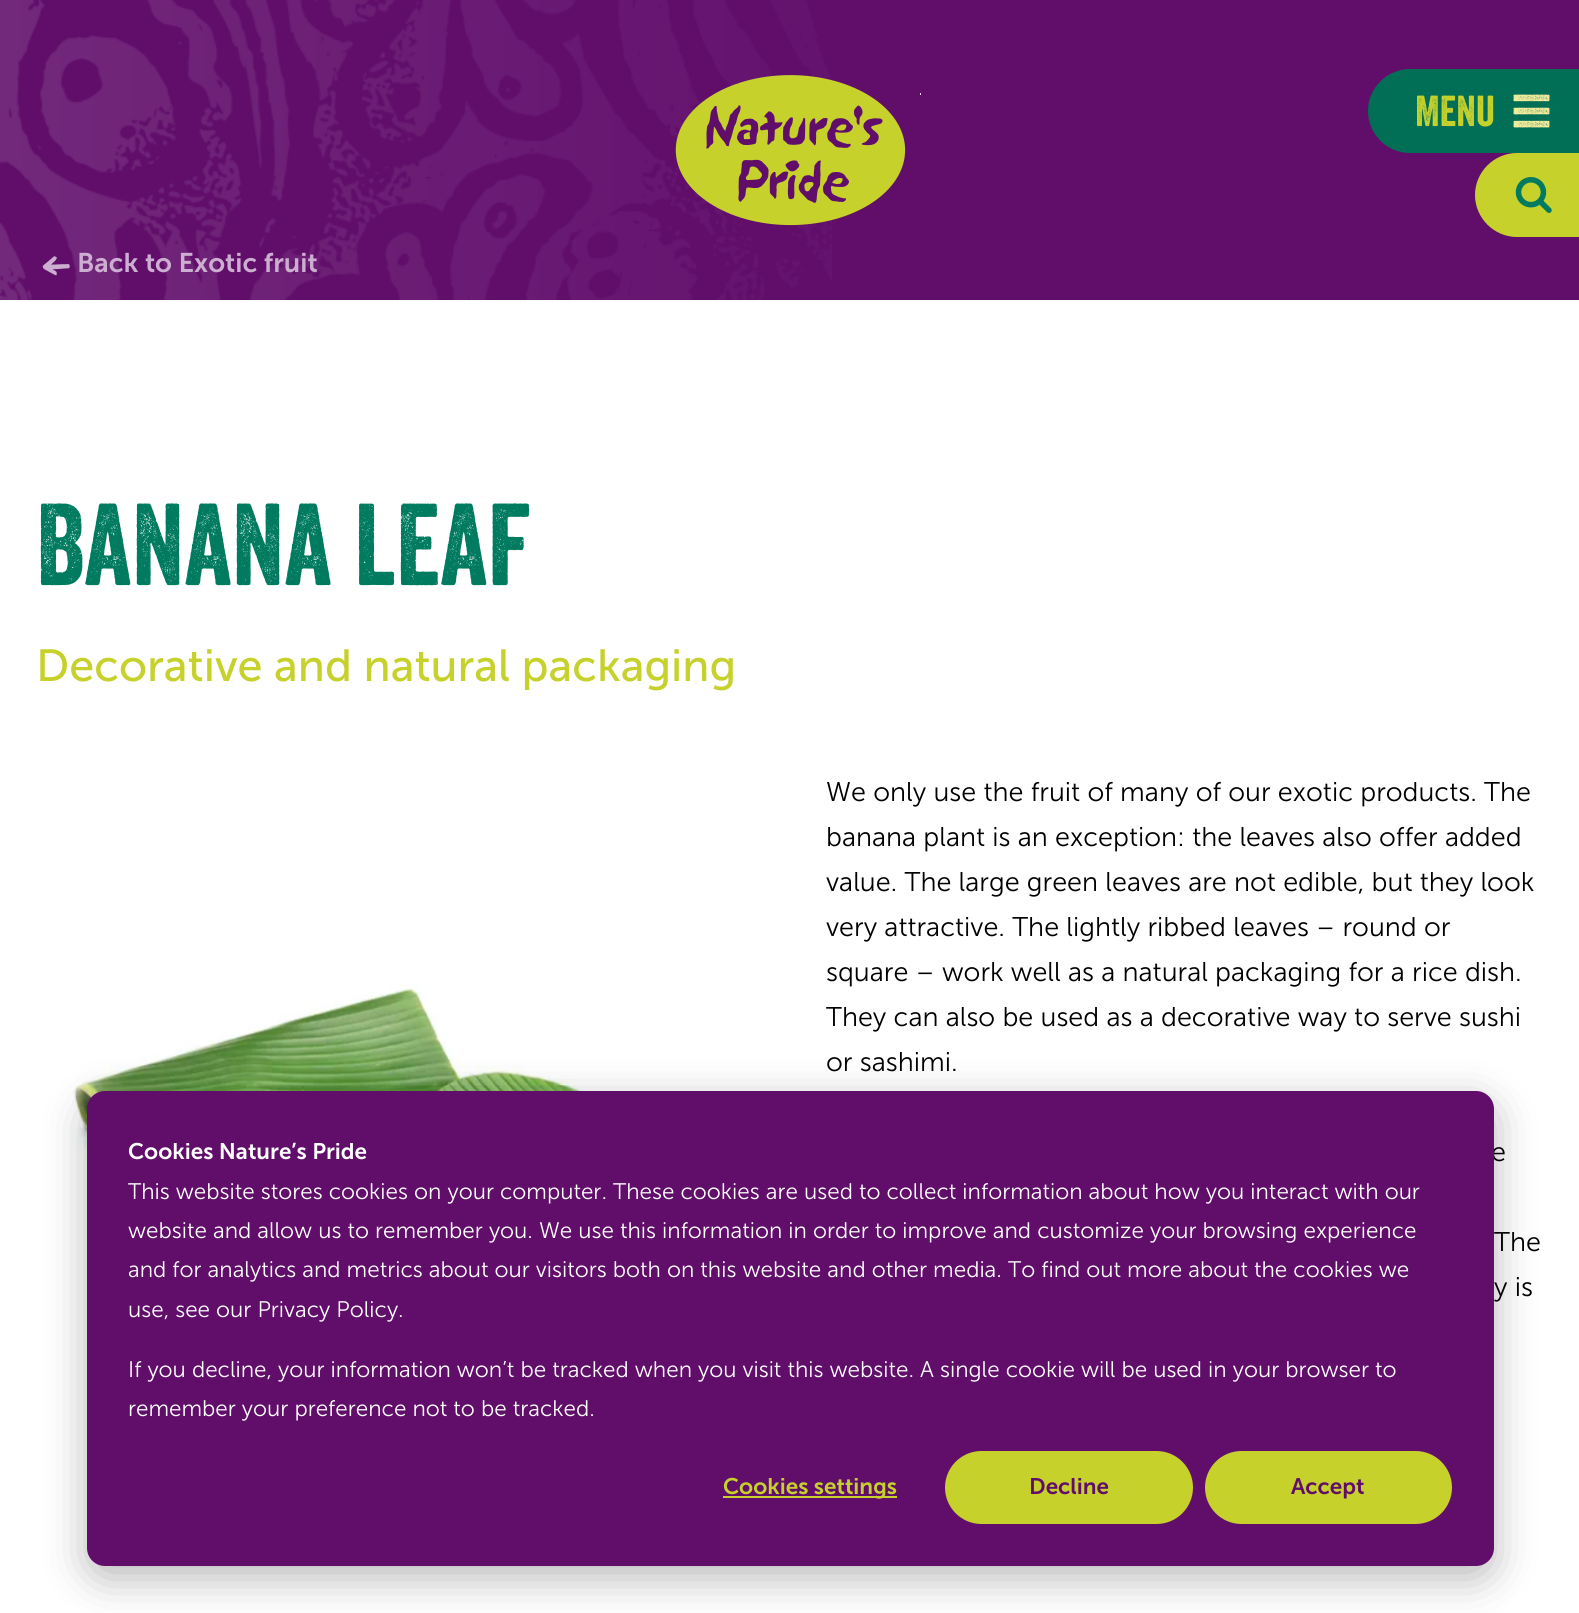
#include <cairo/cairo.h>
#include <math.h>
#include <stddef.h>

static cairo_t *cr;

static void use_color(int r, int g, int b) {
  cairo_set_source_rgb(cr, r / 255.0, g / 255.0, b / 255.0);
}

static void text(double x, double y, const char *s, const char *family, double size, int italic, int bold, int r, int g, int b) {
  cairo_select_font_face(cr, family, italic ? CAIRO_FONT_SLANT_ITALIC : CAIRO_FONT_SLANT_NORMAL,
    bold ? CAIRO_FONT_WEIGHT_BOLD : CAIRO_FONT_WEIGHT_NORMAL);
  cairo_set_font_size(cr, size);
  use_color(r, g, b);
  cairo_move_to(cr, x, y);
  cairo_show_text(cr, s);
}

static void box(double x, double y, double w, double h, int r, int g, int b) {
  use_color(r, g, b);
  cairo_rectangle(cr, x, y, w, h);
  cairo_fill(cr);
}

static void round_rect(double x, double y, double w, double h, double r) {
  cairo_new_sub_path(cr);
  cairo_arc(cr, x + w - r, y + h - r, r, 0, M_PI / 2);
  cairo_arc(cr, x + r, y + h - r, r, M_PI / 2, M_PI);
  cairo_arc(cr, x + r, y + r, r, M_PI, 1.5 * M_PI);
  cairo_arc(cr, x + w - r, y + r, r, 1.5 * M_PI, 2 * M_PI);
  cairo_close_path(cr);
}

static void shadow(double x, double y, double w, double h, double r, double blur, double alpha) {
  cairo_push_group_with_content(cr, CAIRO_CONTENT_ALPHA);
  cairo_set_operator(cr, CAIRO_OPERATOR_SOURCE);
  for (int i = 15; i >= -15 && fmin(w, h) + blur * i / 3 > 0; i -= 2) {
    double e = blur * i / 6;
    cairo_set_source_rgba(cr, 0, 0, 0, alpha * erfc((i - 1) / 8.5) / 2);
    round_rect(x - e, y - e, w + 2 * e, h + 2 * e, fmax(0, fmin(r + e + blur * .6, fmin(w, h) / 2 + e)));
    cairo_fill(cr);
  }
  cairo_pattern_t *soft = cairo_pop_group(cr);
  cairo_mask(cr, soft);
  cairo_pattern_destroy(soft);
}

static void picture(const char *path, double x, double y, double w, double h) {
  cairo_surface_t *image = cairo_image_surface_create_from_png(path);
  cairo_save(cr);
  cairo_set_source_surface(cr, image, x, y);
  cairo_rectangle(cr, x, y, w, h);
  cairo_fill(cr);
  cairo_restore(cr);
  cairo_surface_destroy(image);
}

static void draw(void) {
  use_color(255, 255, 255);
  cairo_paint(cr);
  box(832, 0, 747, 300, 97, 14, 107);
  picture("img_01.png", 0, 0, 832, 300);
  picture("img_02.png", 675, 75, 231, 151);
  box(920, 93, 1, 2, 255, 255, 255);
  use_color(0, 111, 86);
  cairo_new_path(cr);
  cairo_move_to(cr, 1410, 69);
  cairo_line_to(cr, 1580, 69);
  cairo_line_to(cr, 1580, 153);
  cairo_line_to(cr, 1410, 153);
  cairo_curve_to(cr, 1387, 153, 1368, 134, 1368, 111);
  cairo_curve_to(cr, 1368, 88, 1387, 69, 1410, 69);
  cairo_close_path(cr);
  cairo_fill(cr);
  picture("img_03.png", 1513, 94, 37, 34);
  use_color(199, 209, 44);
  cairo_new_path(cr);
  cairo_move_to(cr, 1517, 153);
  cairo_line_to(cr, 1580, 153);
  cairo_line_to(cr, 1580, 237);
  cairo_line_to(cr, 1517, 237);
  cairo_curve_to(cr, 1494, 237, 1475, 218, 1475, 195);
  cairo_curve_to(cr, 1475, 172, 1494, 153, 1517, 153);
  cairo_close_path(cr);
  cairo_fill(cr);
  picture("img_04.png", 1515, 177, 37, 36);
  picture("img_05.png", 42, 255, 28, 21);
  picture("img_06.png", 72, 983, 615, 370);
  use_color(0, 0, 0);
  shadow(87, 1103, 1407, 475, 18, 21, 0.28);
  text(1415, 126, "Menu", "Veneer", 42, 0, 0, 199, 209, 44);
  text(77, 272, "Back to Exotic fruit", "Museo Sans SemiBold", 27, 0, 0, 204, 174, 208);
  text(36, 585, "Banana leaf", "Veneer", 112.5, 0, 0, 0, 123, 95);
  text(36, 681, "Decorative and natural packaging", "Museo Sans", 45, 0, 0, 199, 209, 44);
  text(826, 801, "We only use the fruit of many of our exotic products. The", "Museo Sans Light", 27, 0, 0, 0, 0, 0);
  text(826, 846, "banana plant is an exception: the leaves also offer added", "Museo Sans Light", 27, 0, 0, 0, 0, 0);
  text(826, 891, "value. The large green leaves are not edible, but they look", "Museo Sans Light", 27, 0, 0, 0, 0, 0);
  text(826, 936, "very attractive. The lightly ribbed leaves – round or", "Museo Sans Light", 27, 0, 0, 0, 0, 0);
  text(826, 981, "square – work well as a natural packaging for a rice dish.", "Museo Sans Light", 27, 0, 0, 0, 0, 0);
  text(826, 1026, "They can also be used as a decorative way to serve sushi", "Museo Sans Light", 27, 0, 0, 0, 0, 0);
  text(826, 1071, "or sashimi.", "Museo Sans Light", 27, 0, 0, 0, 0, 0);
  text(1491, 1161, "e", "Museo Sans Light", 27, 0, 0, 0, 0, 0);
  text(1494, 1251, "The", "Museo Sans Light", 27, 0, 0, 0, 0, 0);
  text(1494, 1296, "y is", "Museo Sans Light", 27, 0, 0, 0, 0, 0);
  use_color(97, 14, 107);
  round_rect(87, 1091, 1407, 475, 18);
  cairo_fill(cr);
  text(128, 1159, "Cookies Nature’s Pride", "Museo Sans SemiBold", 22.5, 0, 0, 255, 255, 255);
  text(128, 1199, "This website stores cookies on your computer. These cookies are used to collect information about how you interact with our", "Museo Sans Light", 22.5, 0, 0, 255, 255, 255);
  text(128, 1238, "website and allow us to remember you. We use this information in order to improve and customize your browsing experience", "Museo Sans Light", 22.5, 0, 0, 255, 255, 255);
  text(128, 1277, "and for analytics and metrics about our visitors both on this website and other media. To find out more about the cookies we", "Museo Sans Light", 22.5, 0, 0, 255, 255, 255);
  text(128, 1317, "use, see our Privacy Policy.", "Museo Sans Light", 22.5, 0, 0, 255, 255, 255);
  text(128, 1377, "If you decline, your information won’t be tracked when you visit this website. A single cookie will be used in your browser to", "Museo Sans Light", 22.5, 0, 0, 255, 255, 255);
  text(128, 1416, "remember your preference not to be tracked.", "Museo Sans Light", 22.5, 0, 0, 255, 255, 255);
  box(723, 1496, 174, 2, 199, 209, 44);
  text(723, 1494, "Cookies settings", "Museo Sans SemiBold", 22.5, 0, 0, 199, 209, 44);
  round_rect(946, 1452, 246, 71, 35.5);
  cairo_fill_preserve(cr);
  cairo_stroke(cr);
  text(1029, 1494, "Decline", "Museo Sans SemiBold", 22.5, 0, 0, 97, 14, 107);
  use_color(199, 209, 44);
  round_rect(1206, 1452, 245, 71, 35.5);
  cairo_fill_preserve(cr);
  cairo_stroke(cr);
  text(1291, 1494, "Accept", "Museo Sans SemiBold", 22.5, 0, 0, 97, 14, 107);
}

int main(void) {
  cairo_surface_t *surface = cairo_image_surface_create(CAIRO_FORMAT_RGB24, 1579, 1613);
  cr = cairo_create(surface);
  cairo_font_options_t *options = cairo_font_options_create();
  cairo_font_options_set_hint_metrics(options, CAIRO_HINT_METRICS_OFF);
  cairo_font_options_set_hint_style(options, CAIRO_HINT_STYLE_NONE);
  cairo_set_font_options(cr, options);
  cairo_set_miter_limit(cr, 4);
  draw();
  cairo_surface_write_to_png(surface, "out.png");
  cairo_font_options_destroy(options);
  cairo_destroy(cr);
  cairo_surface_destroy(surface);
  return 0;
}
